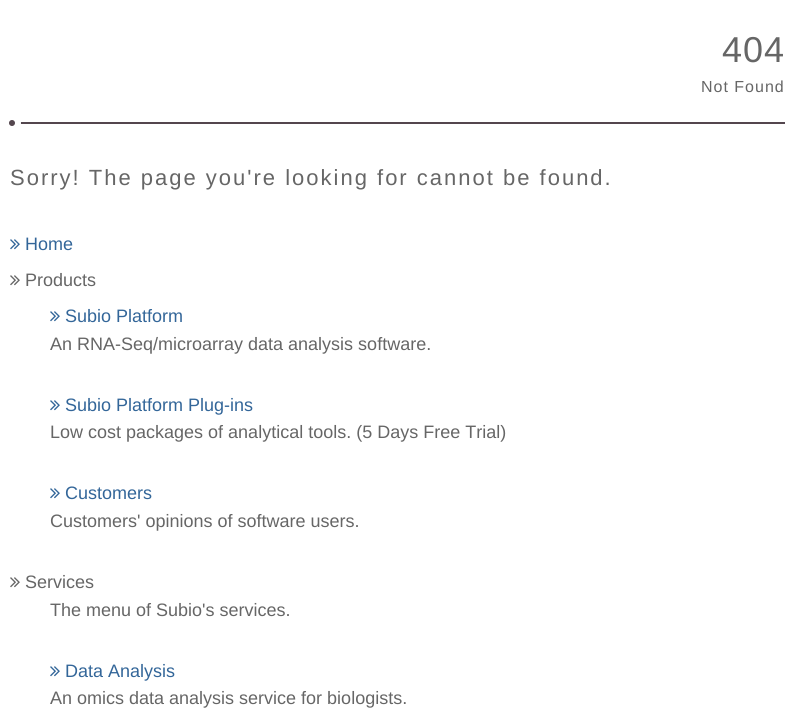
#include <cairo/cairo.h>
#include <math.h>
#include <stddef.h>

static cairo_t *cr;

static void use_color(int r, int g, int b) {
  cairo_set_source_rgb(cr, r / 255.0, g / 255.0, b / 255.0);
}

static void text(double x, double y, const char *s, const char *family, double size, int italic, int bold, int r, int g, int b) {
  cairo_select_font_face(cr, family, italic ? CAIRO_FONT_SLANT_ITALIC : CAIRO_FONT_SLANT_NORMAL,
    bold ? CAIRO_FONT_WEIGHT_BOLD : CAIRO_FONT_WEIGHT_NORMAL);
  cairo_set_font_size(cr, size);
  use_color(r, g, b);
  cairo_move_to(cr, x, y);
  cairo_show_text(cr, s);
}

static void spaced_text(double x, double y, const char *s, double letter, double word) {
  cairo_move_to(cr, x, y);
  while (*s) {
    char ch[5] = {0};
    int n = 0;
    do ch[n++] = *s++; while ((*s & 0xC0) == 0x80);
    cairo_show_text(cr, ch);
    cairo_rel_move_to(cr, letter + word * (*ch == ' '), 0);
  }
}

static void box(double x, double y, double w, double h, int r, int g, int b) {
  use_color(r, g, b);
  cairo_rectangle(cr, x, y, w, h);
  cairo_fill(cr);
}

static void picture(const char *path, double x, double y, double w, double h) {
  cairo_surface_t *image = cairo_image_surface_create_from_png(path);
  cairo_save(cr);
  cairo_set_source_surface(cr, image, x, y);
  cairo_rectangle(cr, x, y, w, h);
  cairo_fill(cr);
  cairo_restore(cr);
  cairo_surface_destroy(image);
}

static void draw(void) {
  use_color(255, 255, 255);
  cairo_paint(cr);
  box(20, 122, 765, 2, 84, 70, 78);
  cairo_arc(cr, 12, 123, 6, 0, 2 * M_PI);
  cairo_fill_preserve(cr);
  use_color(255, 255, 255);
  cairo_set_line_width(cr, 6);
  cairo_stroke(cr);
  picture("img_01.png", 10, 239, 10, 11);
  picture("img_02.png", 10, 275, 10, 11);
  picture("img_01.png", 50, 311, 10, 11);
  picture("img_01.png", 50, 400, 10, 11);
  picture("img_01.png", 50, 488, 10, 11);
  picture("img_02.png", 10, 577, 10, 11);
  picture("img_01.png", 50, 666, 10, 11);
  cairo_select_font_face(cr, "Liberation Sans", CAIRO_FONT_SLANT_NORMAL, CAIRO_FONT_WEIGHT_NORMAL);
  cairo_set_font_size(cr, 36);
  use_color(102, 102, 102);
  spaced_text(722, 62, "404", 1, 0);
  cairo_set_font_size(cr, 16);
  spaced_text(701, 92, "Not Found", 1, 0);
  cairo_set_font_size(cr, 22);
  spaced_text(10, 185, "Sorry! The page you're looking for cannot be found.", 2, 0);
  text(25, 250, "Home", "Liberation Sans", 18, 0, 0, 51, 102, 153);
  text(25, 286, "Products", "Liberation Sans", 18, 0, 0, 102, 102, 102);
  text(65, 322, "Subio Platform", "Liberation Sans", 18, 0, 0, 51, 102, 153);
  text(50, 350, "An RNA-Seq/microarray data analysis software.", "Liberation Sans", 18, 0, 0, 102, 102, 102);
  text(65, 411, "Subio Platform Plug-ins", "Liberation Sans", 18, 0, 0, 51, 102, 153);
  text(50, 438, "Low cost packages of analytical tools. (5 Days Free Trial)", "Liberation Sans", 18, 0, 0, 102, 102, 102);
  text(65, 499, "Customers", "Liberation Sans", 18, 0, 0, 51, 102, 153);
  text(50, 527, "Customers' opinions of software users.", "Liberation Sans", 18, 0, 0, 102, 102, 102);
  text(25, 588, "Services", "Liberation Sans", 18, 0, 0, 102, 102, 102);
  text(50, 616, "The menu of Subio's services.", "Liberation Sans", 18, 0, 0, 102, 102, 102);
  text(65, 677, "Data Analysis", "Liberation Sans", 18, 0, 0, 51, 102, 153);
  text(50, 704, "An omics data analysis service for biologists.", "Liberation Sans", 18, 0, 0, 102, 102, 102);
}

int main(void) {
  cairo_surface_t *surface = cairo_image_surface_create(CAIRO_FORMAT_RGB24, 795, 720);
  cr = cairo_create(surface);
  cairo_font_options_t *options = cairo_font_options_create();
  cairo_font_options_set_hint_metrics(options, CAIRO_HINT_METRICS_OFF);
  cairo_font_options_set_hint_style(options, CAIRO_HINT_STYLE_NONE);
  cairo_set_font_options(cr, options);
  cairo_set_miter_limit(cr, 4);
  draw();
  cairo_surface_write_to_png(surface, "out.png");
  cairo_font_options_destroy(options);
  cairo_destroy(cr);
  cairo_surface_destroy(surface);
  return 0;
}
